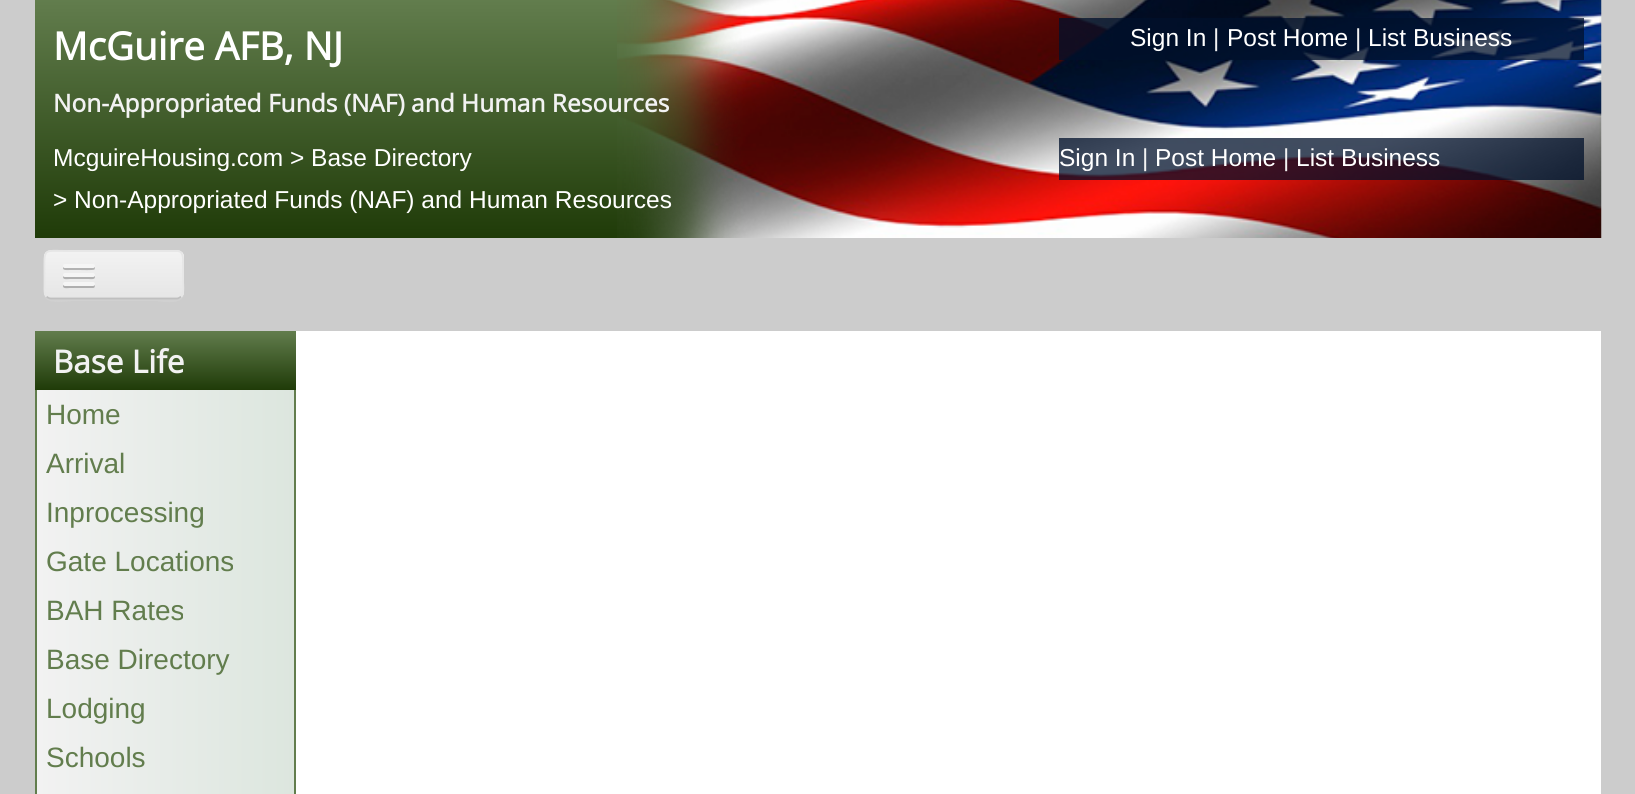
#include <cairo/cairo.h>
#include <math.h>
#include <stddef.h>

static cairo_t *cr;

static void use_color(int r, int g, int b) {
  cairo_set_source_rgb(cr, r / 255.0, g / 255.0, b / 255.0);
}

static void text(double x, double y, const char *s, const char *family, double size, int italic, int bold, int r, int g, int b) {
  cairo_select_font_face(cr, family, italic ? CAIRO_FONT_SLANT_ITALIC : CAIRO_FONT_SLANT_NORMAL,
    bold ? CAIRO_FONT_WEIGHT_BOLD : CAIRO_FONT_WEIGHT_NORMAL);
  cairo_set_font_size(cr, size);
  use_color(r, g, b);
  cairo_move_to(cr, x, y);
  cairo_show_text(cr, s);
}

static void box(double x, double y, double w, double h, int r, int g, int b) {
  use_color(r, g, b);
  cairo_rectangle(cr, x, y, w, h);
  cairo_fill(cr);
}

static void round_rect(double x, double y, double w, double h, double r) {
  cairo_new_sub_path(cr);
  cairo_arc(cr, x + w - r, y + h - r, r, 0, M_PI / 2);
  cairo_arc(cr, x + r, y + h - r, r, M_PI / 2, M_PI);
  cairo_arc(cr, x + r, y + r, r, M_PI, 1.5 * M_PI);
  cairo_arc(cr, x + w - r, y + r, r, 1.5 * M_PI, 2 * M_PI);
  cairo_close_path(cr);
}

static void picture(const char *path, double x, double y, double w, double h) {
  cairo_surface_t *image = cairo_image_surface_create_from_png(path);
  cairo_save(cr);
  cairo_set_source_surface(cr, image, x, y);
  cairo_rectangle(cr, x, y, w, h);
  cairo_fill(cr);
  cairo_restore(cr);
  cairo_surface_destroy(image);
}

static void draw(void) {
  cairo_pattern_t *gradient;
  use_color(204, 204, 204);
  cairo_paint(cr);
  gradient = cairo_pattern_create_linear(818, 0, 818, 238);
  cairo_pattern_add_color_stop_rgba(gradient, 0, 0.384, 0.49, 0.302, 1);
  cairo_pattern_add_color_stop_rgba(gradient, 1, 0.122, 0.231, 0.031, 1);
  cairo_set_source(cr, gradient);
  cairo_pattern_destroy(gradient);
  cairo_rectangle(cr, 35, 0, 1566, 238);
  cairo_fill(cr);
  picture("img_01.png", 617, 0, 985, 238);
  cairo_set_source_rgba(cr, 0, 0.067, 0.169, 0.75);
  cairo_rectangle(cr, 1059, 18, 525, 42);
  cairo_fill(cr);
  cairo_rectangle(cr, 1059, 138, 525, 42);
  cairo_fill(cr);
  use_color(208, 208, 208);
  cairo_new_path(cr);
  cairo_move_to(cr, 44, 294);
  cairo_curve_to(cr, 44, 306, 70, 301, 72, 301);
  cairo_line_to(cr, 156, 301);
  cairo_curve_to(cr, 158, 301, 182, 306, 184, 295);
  cairo_line_to(cr, 184, 257);
  cairo_line_to(cr, 184, 292);
  cairo_curve_to(cr, 184, 296, 181, 299, 177, 299);
  cairo_line_to(cr, 51, 299);
  cairo_curve_to(cr, 48, 299, 45, 297, 44, 294);
  cairo_close_path(cr);
  cairo_fill(cr);
  use_color(237, 237, 237);
  round_rect(44, 250, 140, 49, 7);
  cairo_fill(cr);
  cairo_save(cr);
  round_rect(44, 250, 140, 49, 7);
  cairo_clip(cr);
  gradient = cairo_pattern_create_linear(114, 252, 114, 298);
  cairo_pattern_add_color_stop_rgba(gradient, 0, 0.949, 0.949, 0.949, 1);
  cairo_pattern_add_color_stop_rgba(gradient, 1, 0.902, 0.902, 0.902, 1);
  cairo_set_source(cr, gradient);
  cairo_pattern_destroy(gradient);
  cairo_rectangle(cr, 44, 252, 140, 46);
  cairo_fill(cr);
  cairo_restore(cr);
  cairo_new_path(cr);
  cairo_move_to(cr, 181, 296.5);
  cairo_curve_to(cr, 180, 297.5, 178.5, 298.5, 177, 298.5);
  cairo_line_to(cr, 51, 298.5);
  cairo_curve_to(cr, 49, 298.5, 47.5, 297.5, 46.5, 296.5);
  use_color(191, 191, 191);
  cairo_set_line_width(cr, 1.8);
  cairo_stroke(cr);
  cairo_new_path(cr);
  cairo_move_to(cr, 46.5, 296.5);
  cairo_curve_to(cr, 44, 294, 44.5, 289.5, 44.5, 286.5);
  cairo_line_to(cr, 44.5, 275);
  cairo_curve_to(cr, 44.5, 246.5, 41.5, 251, 72, 251);
  cairo_line_to(cr, 177, 251);
  cairo_curve_to(cr, 183.5, 251, 183, 258.5, 183, 263);
  cairo_line_to(cr, 183, 280.5);
  cairo_curve_to(cr, 183, 284.5, 184.5, 293, 181, 296.5);
  use_color(230, 230, 230);
  cairo_stroke(cr);
  use_color(178, 178, 178);
  cairo_new_path(cr);
  cairo_move_to(cr, 63.5, 267);
  cairo_curve_to(cr, 61, 271, 69, 270, 69.5, 270);
  cairo_line_to(cr, 79, 270);
  cairo_curve_to(cr, 81.5, 270, 93, 270.5, 94.5, 269.5);
  cairo_curve_to(cr, 95, 268.5, 95, 267.5, 94.5, 266.5);
  cairo_line_to(cr, 93.5, 267.5);
  cairo_line_to(cr, 64.5, 267.5);
  cairo_close_path(cr);
  cairo_fill(cr);
  use_color(245, 245, 245);
  round_rect(63, 264, 32, 4, 2);
  cairo_fill(cr);
  use_color(176, 176, 176);
  cairo_new_path(cr);
  cairo_move_to(cr, 63.5, 276);
  cairo_line_to(cr, 63, 277.5);
  cairo_curve_to(cr, 63.5, 280, 68.5, 279, 69.5, 279);
  cairo_line_to(cr, 88.5, 279);
  cairo_curve_to(cr, 90, 279, 95, 280, 95, 277);
  cairo_line_to(cr, 94.5, 275.5);
  cairo_curve_to(cr, 94, 276, 93.5, 276.5, 93, 276.5);
  cairo_line_to(cr, 64.5, 276.5);
  cairo_close_path(cr);
  cairo_fill(cr);
  use_color(245, 245, 245);
  round_rect(63, 273, 32, 4, 2);
  cairo_fill(cr);
  use_color(175, 175, 175);
  cairo_new_path(cr);
  cairo_move_to(cr, 63.5, 284.5);
  cairo_curve_to(cr, 63, 285, 63, 286, 63, 286.5);
  cairo_curve_to(cr, 63.5, 289, 68.5, 288, 69.5, 288);
  cairo_line_to(cr, 93, 288);
  cairo_curve_to(cr, 95, 288, 95.5, 285.5, 94, 284.5);
  cairo_line_to(cr, 93, 285);
  cairo_line_to(cr, 64.5, 285);
  cairo_close_path(cr);
  cairo_fill(cr);
  use_color(245, 245, 245);
  round_rect(63, 282, 32, 4, 2);
  cairo_fill(cr);
  box(296, 331, 1305, 463, 255, 255, 255);
  gradient = cairo_pattern_create_linear(165, 331, 165, 390);
  cairo_pattern_add_color_stop_rgba(gradient, 0, 0.384, 0.49, 0.302, 1);
  cairo_pattern_add_color_stop_rgba(gradient, 1, 0.122, 0.231, 0.031, 1);
  cairo_set_source(cr, gradient);
  cairo_pattern_destroy(gradient);
  cairo_rectangle(cr, 35, 331, 261, 59);
  cairo_fill(cr);
  gradient = cairo_pattern_create_linear(37, 611, 294, 611);
  cairo_pattern_add_color_stop_rgba(gradient, 0, 0.949, 0.949, 0.949, 1);
  cairo_pattern_add_color_stop_rgba(gradient, 1, 0.863, 0.902, 0.871, 1);
  cairo_set_source(cr, gradient);
  cairo_pattern_destroy(gradient);
  cairo_rectangle(cr, 37, 390, 257, 404);
  cairo_fill(cr);
  box(294, 390, 2, 404, 98, 125, 77);
  box(35, 390, 2, 404, 98, 125, 77);
  text(53, 60, "McGuire AFB, NJ", "Open Sans", 38.5, 0, 1, 255, 255, 255);
  text(53, 112, "Non-Appropriated Funds (NAF) and Human Resources", "Open Sans", 24.5, 0, 1, 242, 242, 242);
  text(1130, 46, "Sign In", "Liberation Sans", 24.5, 0, 0, 255, 255, 255);
  text(1213, 46, "|", "Liberation Sans", 24.5, 0, 0, 242, 242, 242);
  text(1227, 46, "Post Home", "Liberation Sans", 24.5, 0, 0, 255, 255, 255);
  text(1355, 46, "|", "Liberation Sans", 24.5, 0, 0, 242, 242, 242);
  text(1368, 46, "List Business", "Liberation Sans", 24.5, 0, 0, 255, 255, 255);
  text(53, 166, "McguireHousing.com > Base Directory", "Liberation Sans", 24.5, 0, 0, 255, 255, 255);
  text(53, 208, "> Non-Appropriated Funds (NAF) and Human Resources", "Liberation Sans", 24.5, 0, 0, 255, 255, 255);
  text(1059, 166, "Sign In", "Liberation Sans", 24.5, 0, 0, 255, 255, 255);
  text(1142, 166, "|", "Liberation Sans", 24.5, 0, 0, 242, 242, 242);
  text(1155, 166, "Post Home", "Liberation Sans", 24.5, 0, 0, 255, 255, 255);
  text(1283, 166, "|", "Liberation Sans", 24.5, 0, 0, 242, 242, 242);
  text(1296, 166, "List Business", "Liberation Sans", 24.5, 0, 0, 255, 255, 255);
  text(53, 373, "Base Life", "Open Sans", 31.5, 0, 1, 242, 242, 242);
  text(46, 424, "Home", "Liberation Sans", 28, 0, 0, 98, 125, 77);
  text(46, 473, "Arrival", "Liberation Sans", 28, 0, 0, 98, 125, 77);
  text(46, 522, "Inprocessing", "Liberation Sans", 28, 0, 0, 98, 125, 77);
  text(46, 571, "Gate Locations", "Liberation Sans", 28, 0, 0, 98, 125, 77);
  text(46, 620, "BAH Rates", "Liberation Sans", 28, 0, 0, 98, 125, 77);
  text(46, 669, "Base Directory", "Liberation Sans", 28, 0, 0, 98, 125, 77);
  text(46, 718, "Lodging", "Liberation Sans", 28, 0, 0, 98, 125, 77);
  text(46, 767, "Schools", "Liberation Sans", 28, 0, 0, 98, 125, 77);
}

int main(void) {
  cairo_surface_t *surface = cairo_image_surface_create(CAIRO_FORMAT_RGB24, 1635, 794);
  cr = cairo_create(surface);
  cairo_font_options_t *options = cairo_font_options_create();
  cairo_font_options_set_hint_metrics(options, CAIRO_HINT_METRICS_OFF);
  cairo_font_options_set_hint_style(options, CAIRO_HINT_STYLE_NONE);
  cairo_set_font_options(cr, options);
  cairo_set_miter_limit(cr, 4);
  draw();
  cairo_surface_write_to_png(surface, "out.png");
  cairo_font_options_destroy(options);
  cairo_destroy(cr);
  cairo_surface_destroy(surface);
  return 0;
}
